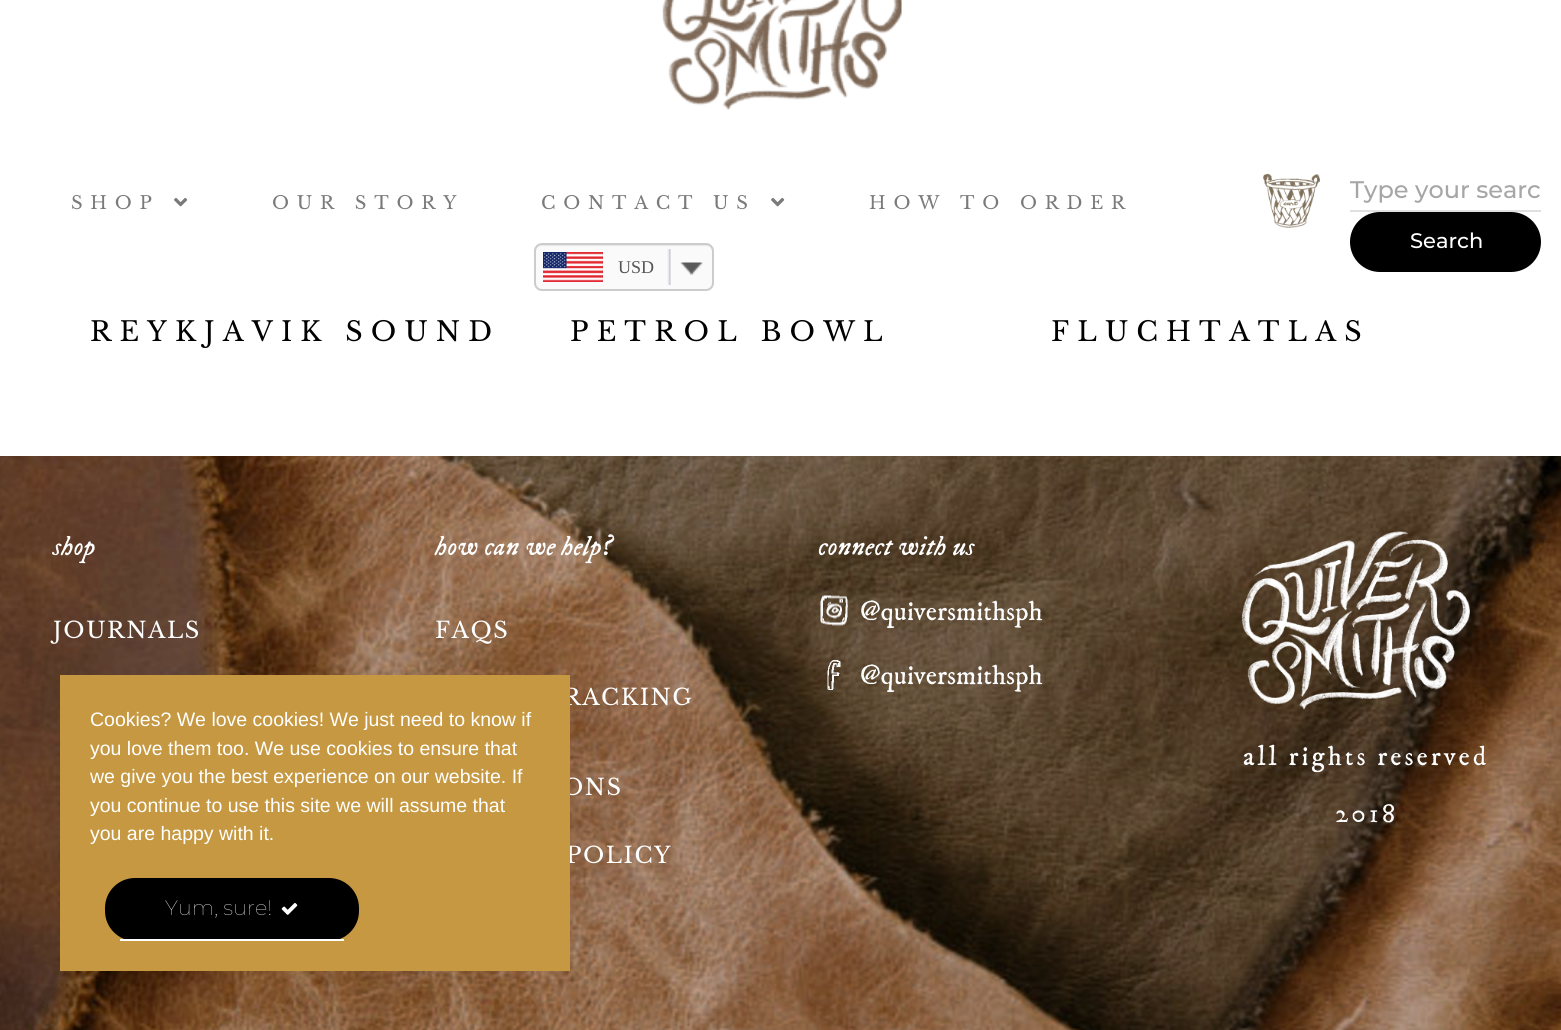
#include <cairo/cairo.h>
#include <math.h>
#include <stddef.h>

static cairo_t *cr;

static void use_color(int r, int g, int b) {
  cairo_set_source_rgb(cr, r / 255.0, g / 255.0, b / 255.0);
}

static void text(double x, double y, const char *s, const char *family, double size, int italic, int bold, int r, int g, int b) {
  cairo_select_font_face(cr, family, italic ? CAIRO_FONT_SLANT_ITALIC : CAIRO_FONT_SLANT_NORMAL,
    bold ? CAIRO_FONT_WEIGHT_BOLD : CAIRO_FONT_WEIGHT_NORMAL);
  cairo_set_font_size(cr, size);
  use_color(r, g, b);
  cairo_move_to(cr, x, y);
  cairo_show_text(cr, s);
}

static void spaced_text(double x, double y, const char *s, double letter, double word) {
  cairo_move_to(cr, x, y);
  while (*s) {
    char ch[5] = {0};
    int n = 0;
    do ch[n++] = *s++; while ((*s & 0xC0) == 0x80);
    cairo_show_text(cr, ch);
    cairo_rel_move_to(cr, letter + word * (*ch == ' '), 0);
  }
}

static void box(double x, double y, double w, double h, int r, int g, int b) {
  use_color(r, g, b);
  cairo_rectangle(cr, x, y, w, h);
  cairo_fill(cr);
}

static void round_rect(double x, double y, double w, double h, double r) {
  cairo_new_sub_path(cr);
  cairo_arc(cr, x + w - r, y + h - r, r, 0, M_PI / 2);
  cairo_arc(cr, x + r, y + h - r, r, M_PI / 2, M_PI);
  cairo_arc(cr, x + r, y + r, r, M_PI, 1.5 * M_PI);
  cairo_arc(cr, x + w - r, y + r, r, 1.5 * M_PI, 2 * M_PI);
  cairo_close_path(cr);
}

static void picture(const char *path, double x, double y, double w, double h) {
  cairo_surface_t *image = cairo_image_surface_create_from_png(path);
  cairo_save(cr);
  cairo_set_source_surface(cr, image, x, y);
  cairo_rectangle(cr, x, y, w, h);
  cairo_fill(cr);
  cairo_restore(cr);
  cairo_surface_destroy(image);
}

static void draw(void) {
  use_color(255, 255, 255);
  cairo_paint(cr);
  picture("img_01.png", 662, 0, 240, 110);
  picture("img_02.png", 174, 197, 14, 10);
  picture("img_02.png", 771, 197, 14, 10);
  use_color(250, 250, 250);
  round_rect(534, 243, 180, 48, 8);
  cairo_fill(cr);
  use_color(231, 231, 231);
  cairo_new_path(cr);
  cairo_move_to(cr, 542, 246);
  cairo_line_to(cr, 706, 246);
  cairo_curve_to(cr, 710, 246, 712, 249, 712, 252);
  cairo_line_to(cr, 712, 285);
  cairo_curve_to(cr, 712, 286, 712, 287, 711, 288);
  cairo_curve_to(cr, 712, 287, 713, 286, 713, 284);
  cairo_line_to(cr, 713, 251);
  cairo_curve_to(cr, 713, 248, 710, 245, 707, 245);
  cairo_line_to(cr, 542, 245);
  cairo_curve_to(cr, 539, 245, 536, 248, 536, 251);
  cairo_line_to(cr, 536, 252);
  cairo_curve_to(cr, 536, 249, 538, 246, 542, 246);
  cairo_close_path(cr);
  cairo_fill(cr);
  round_rect(535, 244, 178, 46, 7);
  use_color(204, 204, 204);
  cairo_stroke(cr);
  picture("img_03.png", 543, 252, 60, 30);
  picture("img_04.png", 667, 249, 36, 36);
  picture("img_05.png", 1263, 173, 57, 55);
  box(1350, 210, 191, 2, 224, 224, 224);
  use_color(0, 0, 0);
  round_rect(1350, 212, 191, 60, 30);
  cairo_fill(cr);
  picture("img_06.png", 0, 456, 1561, 574);
  picture("img_07.png", 820, 595, 28, 31);
  picture("img_08.png", 827, 660, 14, 30);
  picture("img_09.png", 1241, 531, 229, 179);
  cairo_select_font_face(cr, "Libre Baskerville", CAIRO_FONT_SLANT_NORMAL, CAIRO_FONT_WEIGHT_NORMAL);
  cairo_set_font_size(cr, 18);
  use_color(122, 122, 122);
  spaced_text(71, 209, "SHOP", 7.75, 0);
  spaced_text(272, 209, "OUR STORY", 7.75, 0);
  spaced_text(541, 209, "CONTACT US", 7.75, 0);
  spaced_text(869, 209, "HOW TO ORDER", 7.75, 0);
  text(618, 273, "USD", "Liberation Serif", 18, 0, 0, 85, 85, 85);
  text(1350, 198, "Type your searc", "Montserrat Medium", 24, 0, 0, 166, 166, 166);
  text(1410, 248, "Search", "Montserrat Medium", 21, 0, 0, 255, 255, 255);
  cairo_select_font_face(cr, "Libre Baskerville", CAIRO_FONT_SLANT_NORMAL, CAIRO_FONT_WEIGHT_NORMAL);
  cairo_set_font_size(cr, 27);
  use_color(0, 0, 0);
  spaced_text(90, 341, "REYKJAVIK SOUND", 8.1, 0);
  spaced_text(570, 341, "PETROL BOWL", 8.1, 0);
  spaced_text(1051, 341, "FLUCHTATLAS", 8.1, 0);
  text(53, 555, "shop", "IM FELL DW Pica", 27, 1, 0, 255, 255, 255);
  cairo_select_font_face(cr, "Libre Baskerville", CAIRO_FONT_SLANT_NORMAL, CAIRO_FONT_WEIGHT_NORMAL);
  cairo_set_font_size(cr, 22.5);
  spaced_text(53, 638, "JOURNALS", 1.5, 0);
  text(435, 555, "how can we help?", "IM FELL DW Pica", 27, 1, 0, 255, 255, 255);
  cairo_select_font_face(cr, "Libre Baskerville", CAIRO_FONT_SLANT_NORMAL, CAIRO_FONT_WEIGHT_NORMAL);
  cairo_set_font_size(cr, 22.5);
  spaced_text(435, 638, "FAQS", 1.5, 0);
  spaced_text(563, 705, "RACKING", 1.5, 0);
  spaced_text(562, 795, "ONS", 1.5, 0);
  spaced_text(566, 863, "POLICY", 1.5, 0);
  text(818, 555, "connect with us", "IM FELL DW Pica", 27, 1, 0, 255, 255, 255);
  text(860, 620, "@quiversmithsph", "IM FELL DW Pica", 27, 0, 0, 255, 255, 255);
  text(860, 684, "@quiversmithsph", "IM FELL DW Pica", 27, 0, 0, 255, 255, 255);
  spaced_text(1243, 765, "all rights reserved", 3, 0);
  spaced_text(1335, 822, "2018", 3, 0);
  box(60, 675, 510, 296, 198, 152, 65);
  text(90, 726, "Cookies? We love cookies! We just need to know if", "Liberation Sans", 19.5, 0, 0, 255, 255, 255);
  text(90, 755, "you love them too. We use cookies to ensure that", "Liberation Sans", 19.5, 0, 0, 255, 255, 255);
  text(90, 783, "we give you the best experience on our website. If", "Liberation Sans", 19.5, 0, 0, 255, 255, 255);
  text(90, 812, "you continue to use this site we will assume that", "Liberation Sans", 19.5, 0, 0, 255, 255, 255);
  text(90, 840, "you are happy with it.", "Liberation Sans", 19.5, 0, 0, 255, 255, 255);
  use_color(0, 0, 0);
  round_rect(105, 878, 254, 63, 30);
  cairo_fill(cr);
  box(120, 939, 224, 2, 255, 255, 255);
  text(165, 915, "Yum, sure!", "Montserrat Thin", 21, 0, 0, 255, 255, 255);
  picture("img_10.png", 281, 903, 17, 12);
}

int main(void) {
  cairo_surface_t *surface = cairo_image_surface_create(CAIRO_FORMAT_RGB24, 1561, 1030);
  cr = cairo_create(surface);
  cairo_font_options_t *options = cairo_font_options_create();
  cairo_font_options_set_hint_metrics(options, CAIRO_HINT_METRICS_OFF);
  cairo_font_options_set_hint_style(options, CAIRO_HINT_STYLE_NONE);
  cairo_set_font_options(cr, options);
  cairo_set_miter_limit(cr, 4);
  draw();
  cairo_surface_write_to_png(surface, "out.png");
  cairo_font_options_destroy(options);
  cairo_destroy(cr);
  cairo_surface_destroy(surface);
  return 0;
}
